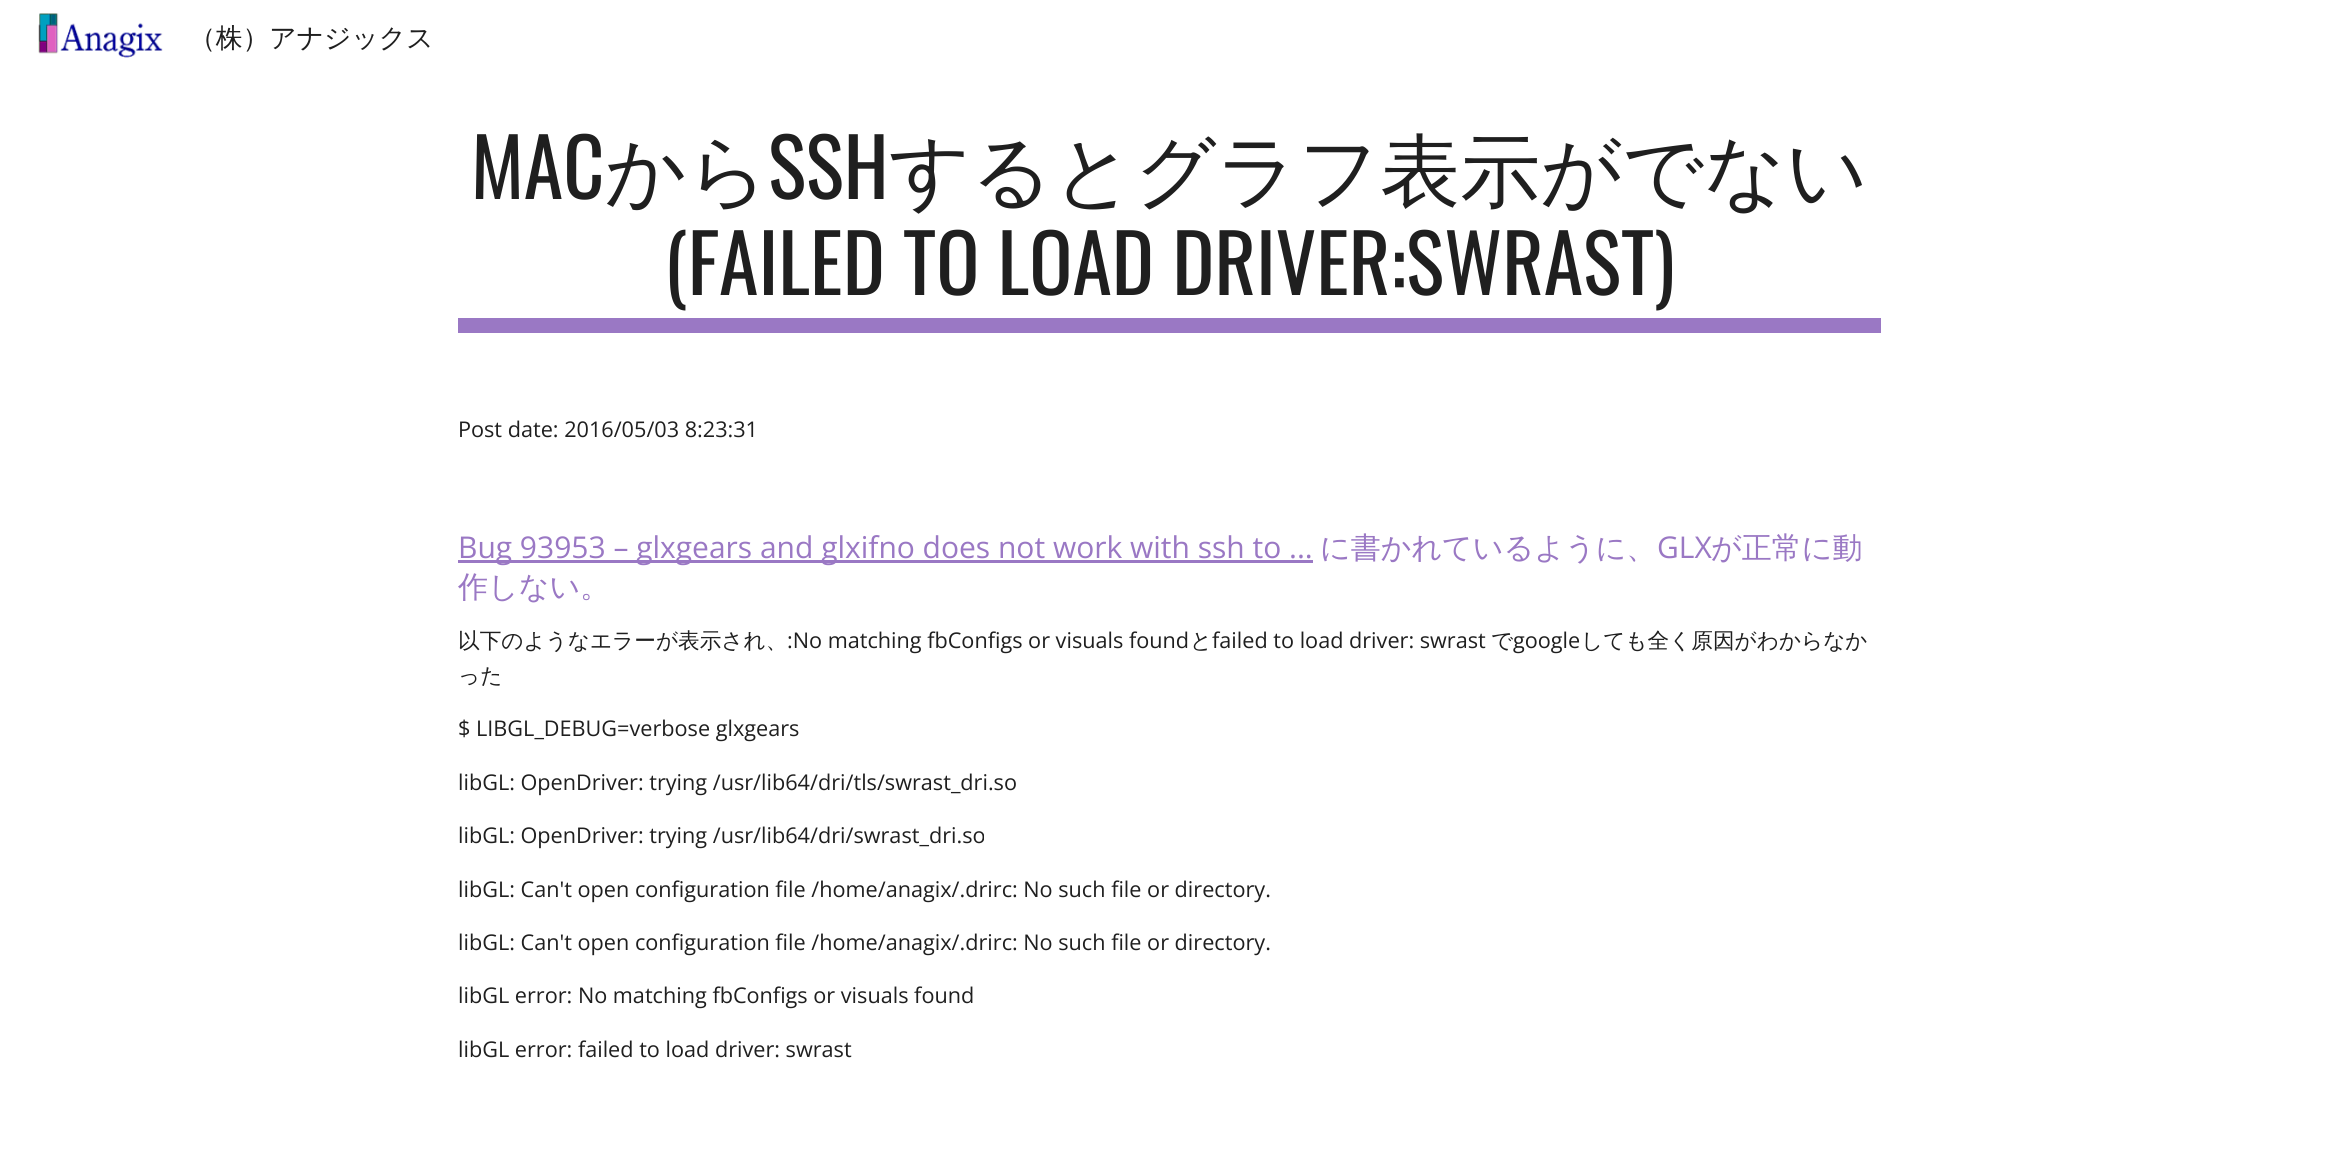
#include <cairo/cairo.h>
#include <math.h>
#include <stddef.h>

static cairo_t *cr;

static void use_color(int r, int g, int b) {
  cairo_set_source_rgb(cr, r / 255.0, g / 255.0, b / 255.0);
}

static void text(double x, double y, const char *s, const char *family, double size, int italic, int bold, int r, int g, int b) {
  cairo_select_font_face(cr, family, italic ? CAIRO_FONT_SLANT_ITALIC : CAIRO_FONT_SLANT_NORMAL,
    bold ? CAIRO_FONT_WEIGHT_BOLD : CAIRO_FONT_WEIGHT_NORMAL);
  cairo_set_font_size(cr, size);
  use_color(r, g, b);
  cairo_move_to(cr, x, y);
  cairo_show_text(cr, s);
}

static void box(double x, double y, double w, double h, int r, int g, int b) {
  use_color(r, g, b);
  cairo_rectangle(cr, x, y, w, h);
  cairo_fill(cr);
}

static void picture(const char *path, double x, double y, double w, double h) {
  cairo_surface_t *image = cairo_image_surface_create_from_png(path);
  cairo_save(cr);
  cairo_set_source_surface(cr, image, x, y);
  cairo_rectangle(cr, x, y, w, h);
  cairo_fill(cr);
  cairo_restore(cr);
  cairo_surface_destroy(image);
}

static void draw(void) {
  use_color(255, 255, 255);
  cairo_paint(cr);
  picture("img_01.png", 38, 13, 125, 45);
  box(458, 318, 1423, 15, 154, 120, 196);
  box(458, 560, 855, 3, 154, 120, 196);
  text(189, 47, "（株）アナジックス", "WenQuanYi Zen Hei Medium", 26.75, 0, 0, 31, 31, 31);
  text(471, 199, "MAC", "Oswald", 80, 0, 0, 31, 31, 31);
  text(605, 199, "から", "WenQuanYi Zen Hei Medium", 80, 0, 0, 31, 31, 31);
  text(768, 199, "SSH", "Oswald", 80, 0, 0, 31, 31, 31);
  text(889, 199, "するとグラフ表示がでない", "WenQuanYi Zen Hei Medium", 80, 0, 0, 31, 31, 31);
  text(664, 295, "(FAILED TO LOAD DRIVER:SWRAST)", "Oswald", 80, 0, 0, 31, 31, 31);
  text(458, 437, "Post date: 2016/05/03 8:23:31", "Open Sans", 21.65, 0, 0, 31, 31, 31);
  text(458, 558, "Bug 93953 – glxgears and glxifno does not work with ssh to ...", "Open Sans", 30, 0, 0, 154, 120, 196);
  text(1320, 558, "に書かれているように、", "WenQuanYi Zen Hei Medium", 30, 0, 0, 154, 120, 196);
  text(1657, 558, "GLX", "Open Sans", 30, 0, 0, 154, 120, 196);
  text(1711, 558, "が正常に動", "WenQuanYi Zen Hei Medium", 30, 0, 0, 154, 120, 196);
  text(458, 597, "作しない。", "WenQuanYi Zen Hei Medium", 30, 0, 0, 154, 120, 196);
  text(458, 648, "以下のようなエラーが表示され、", "WenQuanYi Zen Hei Medium", 21.65, 0, 0, 31, 31, 31);
  text(787, 648, ":No matching fbConfigs or visuals found", "Open Sans", 21.65, 0, 0, 31, 31, 31);
  text(1190, 648, "と", "WenQuanYi Zen Hei Medium", 21.65, 0, 0, 31, 31, 31);
  text(1212, 648, "failed to load driver: swrast", "Open Sans", 21.65, 0, 0, 31, 31, 31);
  text(1491, 648, "で", "WenQuanYi Zen Hei Medium", 21.65, 0, 0, 31, 31, 31);
  text(1513, 648, "google", "Open Sans", 21.65, 0, 0, 31, 31, 31);
  text(1581, 648, "しても全く原因がわからなか", "WenQuanYi Zen Hei Medium", 21.65, 0, 0, 31, 31, 31);
  text(458, 683, "った", "WenQuanYi Zen Hei Medium", 21.65, 0, 0, 31, 31, 31);
  text(458, 736, "$ LIBGL_DEBUG=verbose glxgears", "Open Sans", 21.65, 0, 0, 31, 31, 31);
  text(458, 790, "libGL: OpenDriver: trying /usr/lib64/dri/tls/swrast_dri.so", "Open Sans", 21.65, 0, 0, 31, 31, 31);
  text(458, 843, "libGL: OpenDriver: trying /usr/lib64/dri/swrast_dri.so", "Open Sans", 21.65, 0, 0, 31, 31, 31);
  text(458, 897, "libGL: Can't open configuration file /home/anagix/.drirc: No such file or directory.", "Open Sans", 21.65, 0, 0, 31, 31, 31);
  text(458, 950, "libGL: Can't open configuration file /home/anagix/.drirc: No such file or directory.", "Open Sans", 21.65, 0, 0, 31, 31, 31);
  text(458, 1003, "libGL error: No matching fbConfigs or visuals found", "Open Sans", 21.65, 0, 0, 31, 31, 31);
  text(458, 1057, "libGL error: failed to load driver: swrast", "Open Sans", 21.65, 0, 0, 31, 31, 31);
}

int main(void) {
  cairo_surface_t *surface = cairo_image_surface_create(CAIRO_FORMAT_RGB24, 2338, 1176);
  cr = cairo_create(surface);
  cairo_font_options_t *options = cairo_font_options_create();
  cairo_font_options_set_hint_metrics(options, CAIRO_HINT_METRICS_OFF);
  cairo_font_options_set_hint_style(options, CAIRO_HINT_STYLE_NONE);
  cairo_set_font_options(cr, options);
  cairo_set_miter_limit(cr, 4);
  draw();
  cairo_surface_write_to_png(surface, "out.png");
  cairo_font_options_destroy(options);
  cairo_destroy(cr);
  cairo_surface_destroy(surface);
  return 0;
}
